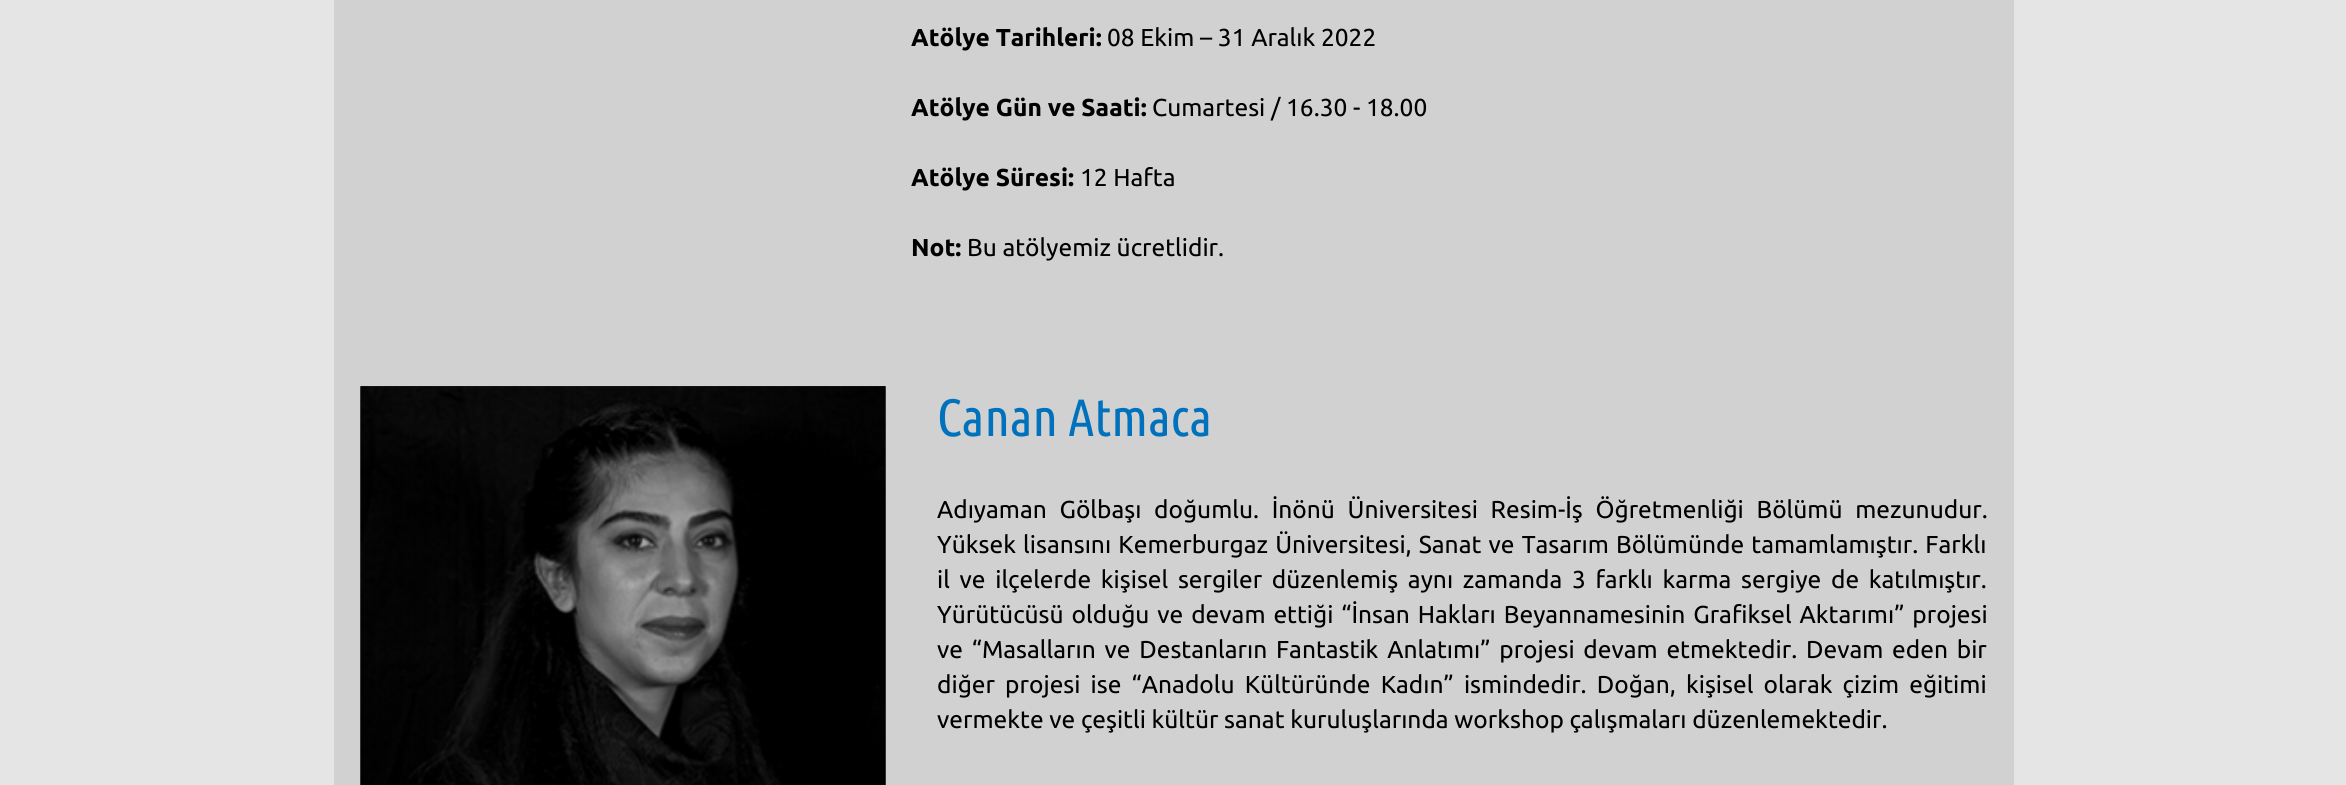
#include <cairo/cairo.h>
#include <math.h>
#include <stddef.h>

static cairo_t *cr;

static void use_color(int r, int g, int b) {
  cairo_set_source_rgb(cr, r / 255.0, g / 255.0, b / 255.0);
}

static void text(double x, double y, const char *s, const char *family, double size, int italic, int bold, int r, int g, int b) {
  cairo_select_font_face(cr, family, italic ? CAIRO_FONT_SLANT_ITALIC : CAIRO_FONT_SLANT_NORMAL,
    bold ? CAIRO_FONT_WEIGHT_BOLD : CAIRO_FONT_WEIGHT_NORMAL);
  cairo_set_font_size(cr, size);
  use_color(r, g, b);
  cairo_move_to(cr, x, y);
  cairo_show_text(cr, s);
}

static void spaced_text(double x, double y, const char *s, double letter, double word) {
  cairo_move_to(cr, x, y);
  while (*s) {
    char ch[5] = {0};
    int n = 0;
    do ch[n++] = *s++; while ((*s & 0xC0) == 0x80);
    cairo_show_text(cr, ch);
    cairo_rel_move_to(cr, letter + word * (*ch == ' '), 0);
  }
}

static void box(double x, double y, double w, double h, int r, int g, int b) {
  use_color(r, g, b);
  cairo_rectangle(cr, x, y, w, h);
  cairo_fill(cr);
}

static void picture(const char *path, double x, double y, double w, double h) {
  cairo_surface_t *image = cairo_image_surface_create_from_png(path);
  cairo_save(cr);
  cairo_set_source_surface(cr, image, x, y);
  cairo_rectangle(cr, x, y, w, h);
  cairo_fill(cr);
  cairo_restore(cr);
  cairo_surface_destroy(image);
}

static void draw(void) {
  use_color(229, 229, 229);
  cairo_paint(cr);
  box(334, 0, 1680, 785, 209, 209, 209);
  picture("img_01.png", 360, 386, 526, 399);
  picture("img_02.png", 360, 386, 526, 399);
  text(911, 46, "Atölye Tarihleri:", "Ubuntu", 24.5, 0, 1, 0, 0, 0);
  text(1107, 46, "08 Ekim – 31 Aralık 2022", "Ubuntu", 24.5, 0, 0, 0, 0, 0);
  text(911, 116, "Atölye Gün ve Saati:", "Ubuntu", 24.5, 0, 1, 0, 0, 0);
  text(1152, 116, "Cumartesi / 16.30 - 18.00", "Ubuntu", 24.5, 0, 0, 0, 0, 0);
  text(911, 186, "Atölye Süresi:", "Ubuntu", 24.5, 0, 1, 0, 0, 0);
  text(1080, 186, "12 Hafta", "Ubuntu", 24.5, 0, 0, 0, 0, 0);
  text(911, 256, "Not:", "Ubuntu", 24.5, 0, 1, 0, 0, 0);
  text(967, 256, "Bu atölyemiz ücretlidir.", "Ubuntu", 24.5, 0, 0, 0, 0, 0);
  text(937, 436, "Canan Atmaca", "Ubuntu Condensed", 52.5, 0, 0, 0, 113, 188);
  cairo_select_font_face(cr, "Ubuntu", CAIRO_FONT_SLANT_NORMAL, CAIRO_FONT_WEIGHT_NORMAL);
  cairo_set_font_size(cr, 24.5);
  use_color(0, 0, 0);
  spaced_text(937, 518, "Adıyaman Gölbaşı doğumlu. İnönü Üniversitesi Resim-İş Öğretmenliği Bölümü mezunudur.", 0, 7);
  spaced_text(937, 553, "Yüksek lisansını Kemerburgaz Üniversitesi, Sanat ve Tasarım Bölümünde tamamlamıştır. Farklı", 0, 1.5);
  spaced_text(937, 588, "il ve ilçelerde kişisel sergiler düzenlemiş aynı zamanda 3 farklı karma sergiye de katılmıştır.", 0, 4);
  spaced_text(937, 623, "Yürütücüsü olduğu ve devam ettiği “İnsan Hakları Beyannamesinin Grafiksel Aktarımı” projesi", 0, 2.25);
  spaced_text(937, 658, "ve “Masalların ve Destanların Fantastik Anlatımı” projesi devam etmektedir. Devam eden bir", 0, 3.1);
  spaced_text(937, 693, "diğer projesi ise “Anadolu Kültüründe Kadın” ismindedir. Doğan, kişisel olarak çizim eğitimi", 0, 4.5);
  text(937, 728, "vermekte ve çeşitli kültür sanat kuruluşlarında workshop çalışmaları düzenlemektedir.", "Ubuntu", 24.5, 0, 0, 0, 0, 0);
}

int main(void) {
  cairo_surface_t *surface = cairo_image_surface_create(CAIRO_FORMAT_RGB24, 2346, 785);
  cr = cairo_create(surface);
  cairo_font_options_t *options = cairo_font_options_create();
  cairo_font_options_set_hint_metrics(options, CAIRO_HINT_METRICS_OFF);
  cairo_font_options_set_hint_style(options, CAIRO_HINT_STYLE_NONE);
  cairo_set_font_options(cr, options);
  cairo_set_miter_limit(cr, 4);
  draw();
  cairo_surface_write_to_png(surface, "out.png");
  cairo_font_options_destroy(options);
  cairo_destroy(cr);
  cairo_surface_destroy(surface);
  return 0;
}
